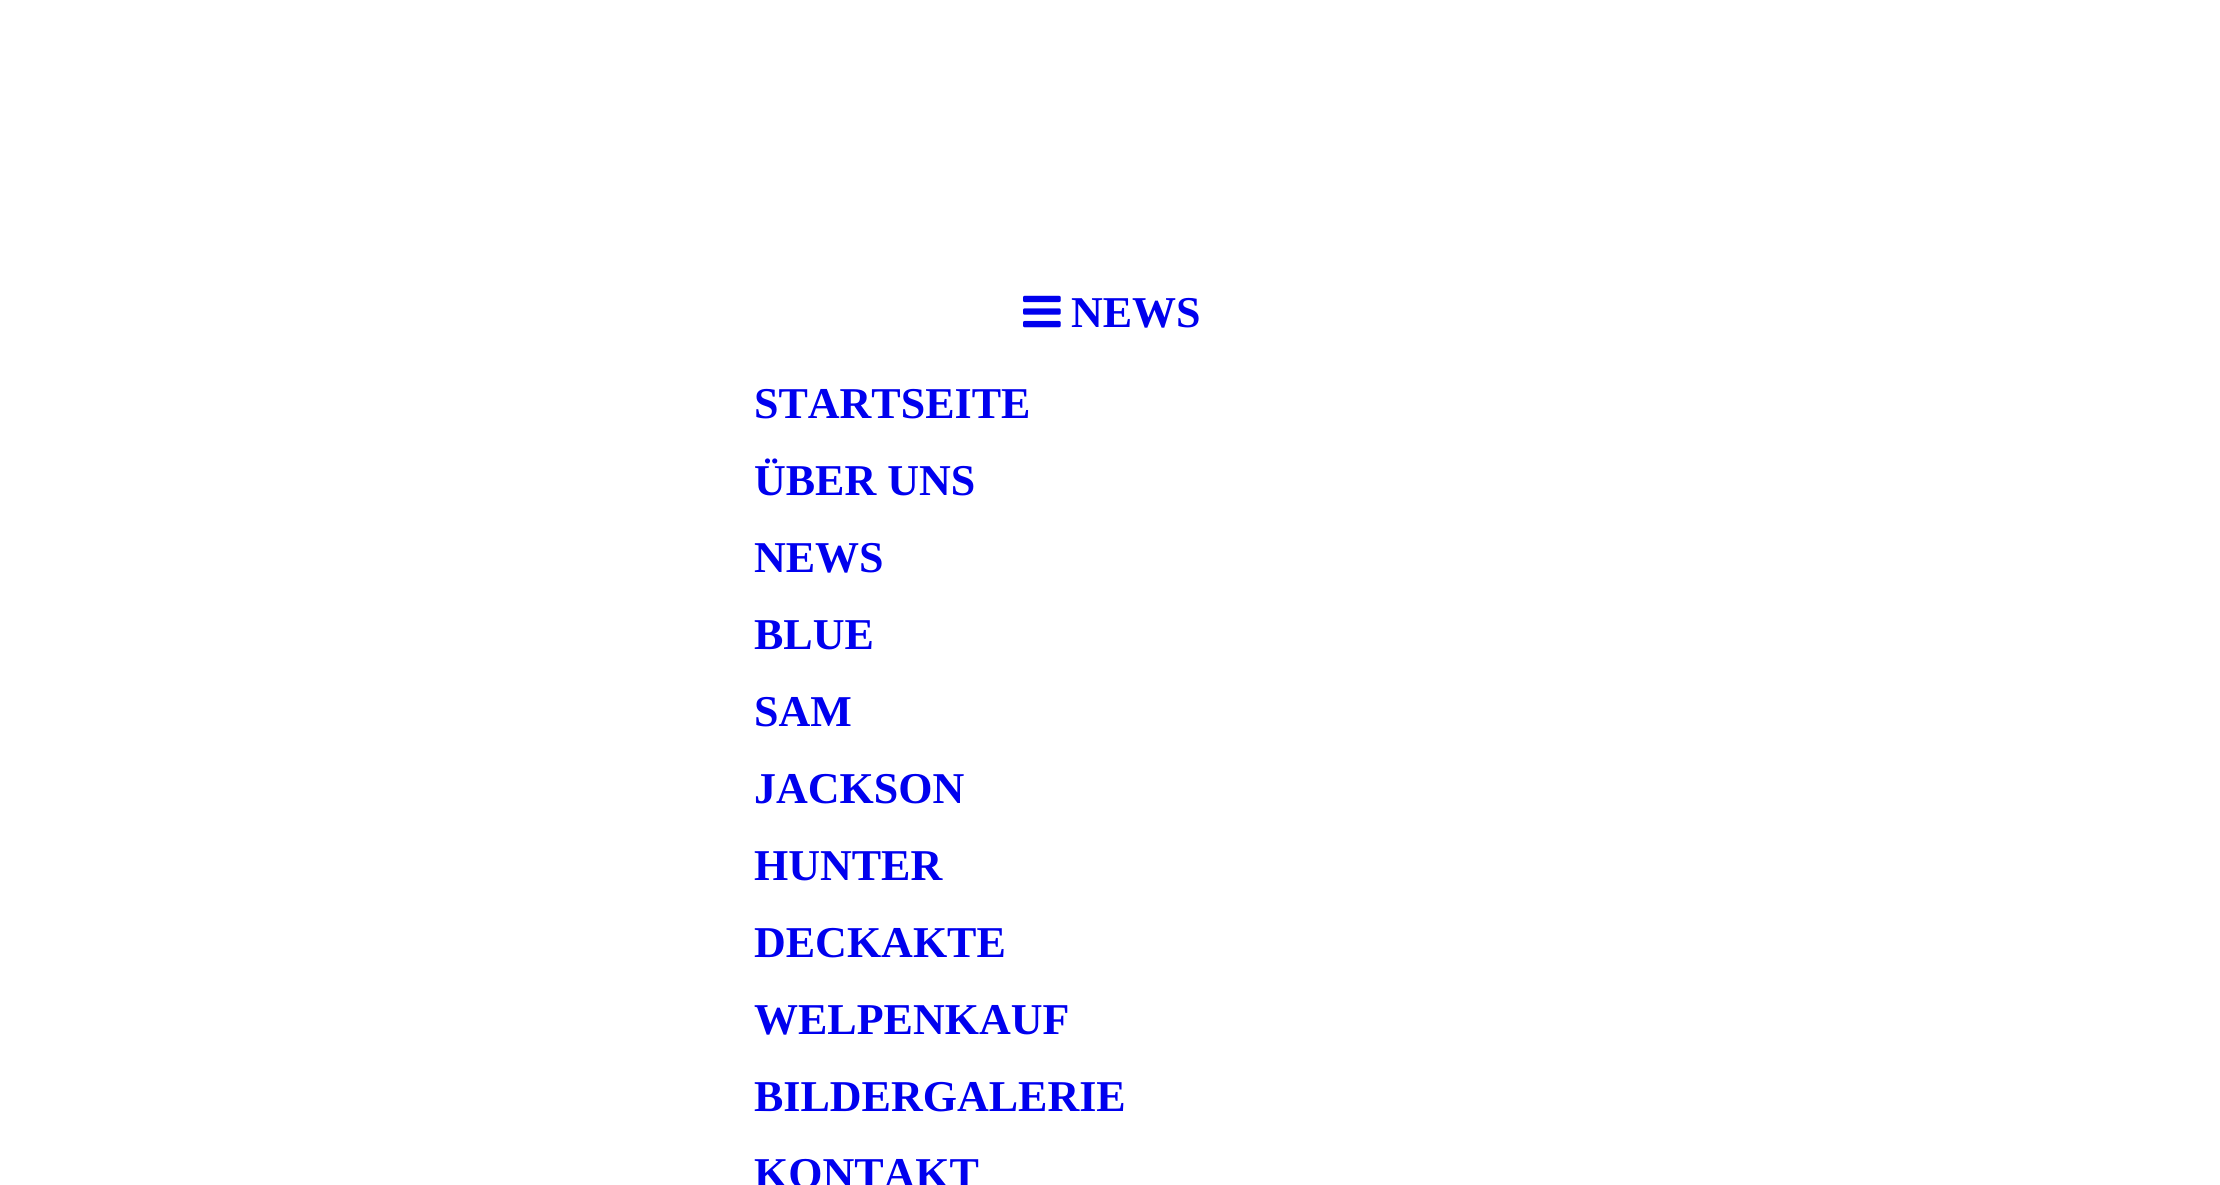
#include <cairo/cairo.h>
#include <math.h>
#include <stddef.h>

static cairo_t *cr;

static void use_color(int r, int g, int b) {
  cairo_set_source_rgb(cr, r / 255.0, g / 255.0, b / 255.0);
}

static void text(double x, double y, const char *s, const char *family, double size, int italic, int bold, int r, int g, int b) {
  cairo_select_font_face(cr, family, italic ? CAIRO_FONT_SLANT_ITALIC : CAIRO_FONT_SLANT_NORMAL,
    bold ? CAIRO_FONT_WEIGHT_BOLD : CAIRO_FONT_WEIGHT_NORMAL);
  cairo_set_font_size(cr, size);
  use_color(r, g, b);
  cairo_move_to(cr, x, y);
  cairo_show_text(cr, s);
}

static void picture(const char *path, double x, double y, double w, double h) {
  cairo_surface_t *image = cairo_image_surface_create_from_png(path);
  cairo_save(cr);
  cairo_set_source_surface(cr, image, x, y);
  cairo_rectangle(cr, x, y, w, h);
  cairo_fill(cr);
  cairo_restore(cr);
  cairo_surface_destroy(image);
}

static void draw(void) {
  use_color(255, 255, 255);
  cairo_paint(cr);
  picture("img_01.png", 1023, 295, 38, 33);
  text(1071, 327, "NEWS", "Liberation Serif", 44, 0, 1, 0, 0, 238);
  text(754, 418, "STARTSEITE", "Liberation Serif", 44, 0, 1, 0, 0, 238);
  text(754, 495, "ÜBER UNS", "Liberation Serif", 44, 0, 1, 0, 0, 238);
  text(754, 572, "NEWS", "Liberation Serif", 44, 0, 1, 0, 0, 238);
  text(754, 649, "BLUE", "Liberation Serif", 44, 0, 1, 0, 0, 238);
  text(754, 726, "SAM", "Liberation Serif", 44, 0, 1, 0, 0, 238);
  text(754, 803, "JACKSON", "Liberation Serif", 44, 0, 1, 0, 0, 238);
  text(754, 880, "HUNTER", "Liberation Serif", 44, 0, 1, 0, 0, 238);
  text(754, 957, "DECKAKTE", "Liberation Serif", 44, 0, 1, 0, 0, 238);
  text(754, 1034, "WELPENKAUF", "Liberation Serif", 44, 0, 1, 0, 0, 238);
  text(754, 1111, "BILDERGALERIE", "Liberation Serif", 44, 0, 1, 0, 0, 238);
  text(754, 1188, "KONTAKT", "Liberation Serif", 44, 0, 1, 0, 0, 238);
}

int main(void) {
  cairo_surface_t *surface = cairo_image_surface_create(CAIRO_FORMAT_RGB24, 2220, 1185);
  cr = cairo_create(surface);
  cairo_font_options_t *options = cairo_font_options_create();
  cairo_font_options_set_hint_metrics(options, CAIRO_HINT_METRICS_OFF);
  cairo_font_options_set_hint_style(options, CAIRO_HINT_STYLE_NONE);
  cairo_set_font_options(cr, options);
  cairo_set_miter_limit(cr, 4);
  draw();
  cairo_surface_write_to_png(surface, "out.png");
  cairo_font_options_destroy(options);
  cairo_destroy(cr);
  cairo_surface_destroy(surface);
  return 0;
}
